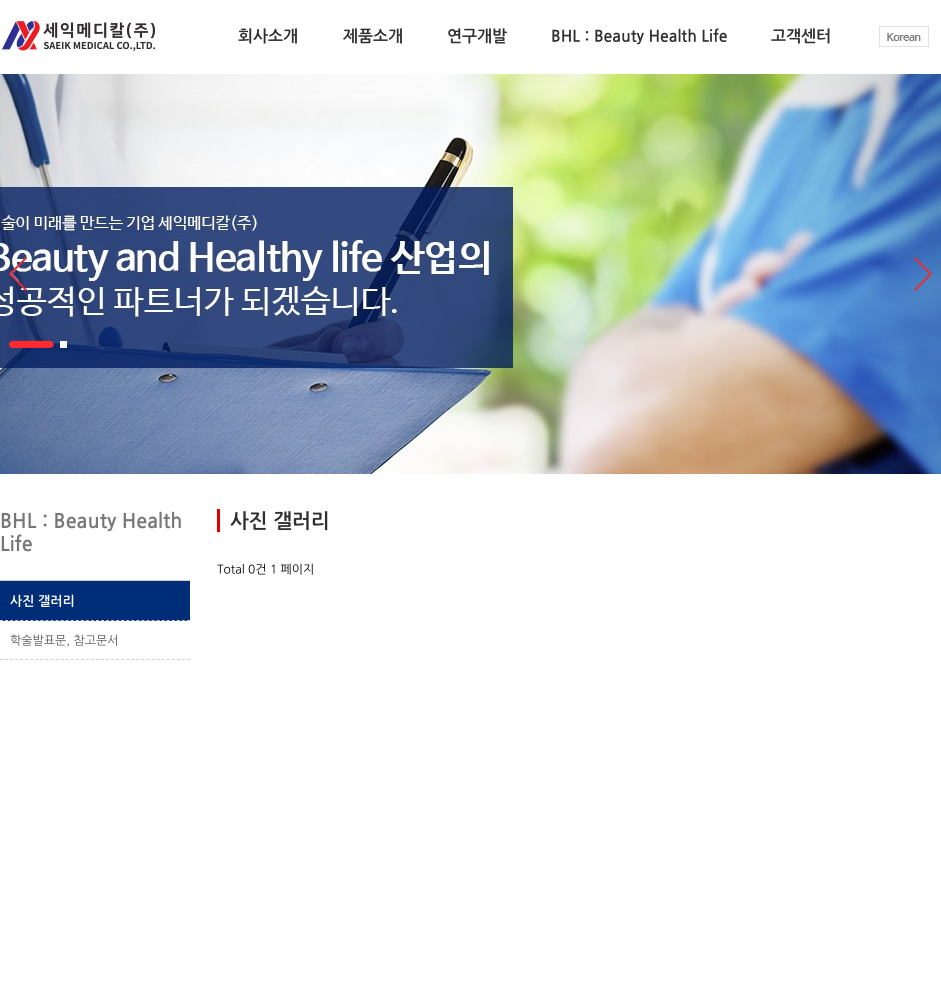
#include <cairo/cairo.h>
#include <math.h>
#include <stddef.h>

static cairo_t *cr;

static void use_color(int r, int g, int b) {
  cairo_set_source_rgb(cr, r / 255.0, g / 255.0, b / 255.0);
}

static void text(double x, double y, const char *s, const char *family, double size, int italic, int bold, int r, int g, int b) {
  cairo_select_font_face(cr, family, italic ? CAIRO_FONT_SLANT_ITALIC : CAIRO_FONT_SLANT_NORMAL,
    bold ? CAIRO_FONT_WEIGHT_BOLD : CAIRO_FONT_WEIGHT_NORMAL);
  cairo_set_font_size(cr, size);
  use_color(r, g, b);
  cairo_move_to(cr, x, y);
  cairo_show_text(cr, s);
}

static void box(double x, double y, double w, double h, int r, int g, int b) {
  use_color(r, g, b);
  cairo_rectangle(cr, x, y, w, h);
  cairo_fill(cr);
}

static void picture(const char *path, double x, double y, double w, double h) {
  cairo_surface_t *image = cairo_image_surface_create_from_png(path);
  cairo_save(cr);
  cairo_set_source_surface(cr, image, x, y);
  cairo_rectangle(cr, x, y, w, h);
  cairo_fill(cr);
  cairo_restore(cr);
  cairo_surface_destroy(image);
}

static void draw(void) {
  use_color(255, 255, 255);
  cairo_paint(cr);
  picture("img_01.png", 2, 21, 153, 30);
  picture("img_02.png", 879, 26, 50, 21);
  picture("img_03.png", 0, 74, 941, 400);
  picture("img_04.png", 9, 257, 18, 34);
  picture("img_05.png", 914, 257, 18, 34);
  picture("img_06.png", 9, 340, 45, 8);
  box(60, 341, 7, 7, 255, 255, 255);
  box(0, 580, 190, 1, 207, 207, 207);
  box(0, 581, 190, 40, 0, 45, 120);
  cairo_new_path(cr);
  cairo_move_to(cr, 0, 620.5);
  cairo_line_to(cr, 190, 620.5);
  use_color(207, 207, 207);
  cairo_set_line_width(cr, 1);
  cairo_set_dash(cr, (double[]){3, 2.05}, 2, 0);
  cairo_stroke(cr);
  cairo_new_path(cr);
  cairo_move_to(cr, 0, 659.5);
  cairo_line_to(cr, 190, 659.5);
  cairo_stroke(cr);
  box(217, 509, 3, 23, 230, 0, 0);
  text(238, 41, "회사소개", "NanumGothic", 16, 0, 1, 47, 47, 47);
  text(343, 41, "제품소개", "NanumGothic", 16, 0, 1, 47, 47, 47);
  text(447, 41, "연구개발", "NanumGothic", 16, 0, 1, 47, 47, 47);
  text(551, 41, "BHL : Beauty Health Life", "NanumGothic", 16, 0, 1, 47, 47, 47);
  text(771, 41, "고객센터", "NanumGothic", 16, 0, 1, 47, 47, 47);
  text(0, 527, "BHL : Beauty Health", "NanumGothic", 20, 0, 1, 119, 119, 119);
  text(0, 550, "Life", "NanumGothic", 20, 0, 1, 119, 119, 119);
  text(10, 605, "사진 갤러리", "NanumGothic", 13, 0, 1, 255, 255, 255);
  text(10, 644, "학술발표문, 참고문서", "NanumGothic", 12, 0, 0, 85, 85, 85);
  text(230, 527, "사진 갤러리", "NanumGothic", 20, 0, 1, 47, 47, 47);
  text(217, 573, "Total 0건 1 페이지", "NanumGothic", 12, 0, 0, 0, 0, 0);
}

int main(void) {
  cairo_surface_t *surface = cairo_image_surface_create(CAIRO_FORMAT_RGB24, 941, 991);
  cr = cairo_create(surface);
  cairo_font_options_t *options = cairo_font_options_create();
  cairo_font_options_set_hint_metrics(options, CAIRO_HINT_METRICS_OFF);
  cairo_font_options_set_hint_style(options, CAIRO_HINT_STYLE_NONE);
  cairo_set_font_options(cr, options);
  cairo_set_miter_limit(cr, 4);
  draw();
  cairo_surface_write_to_png(surface, "out.png");
  cairo_font_options_destroy(options);
  cairo_destroy(cr);
  cairo_surface_destroy(surface);
  return 0;
}
